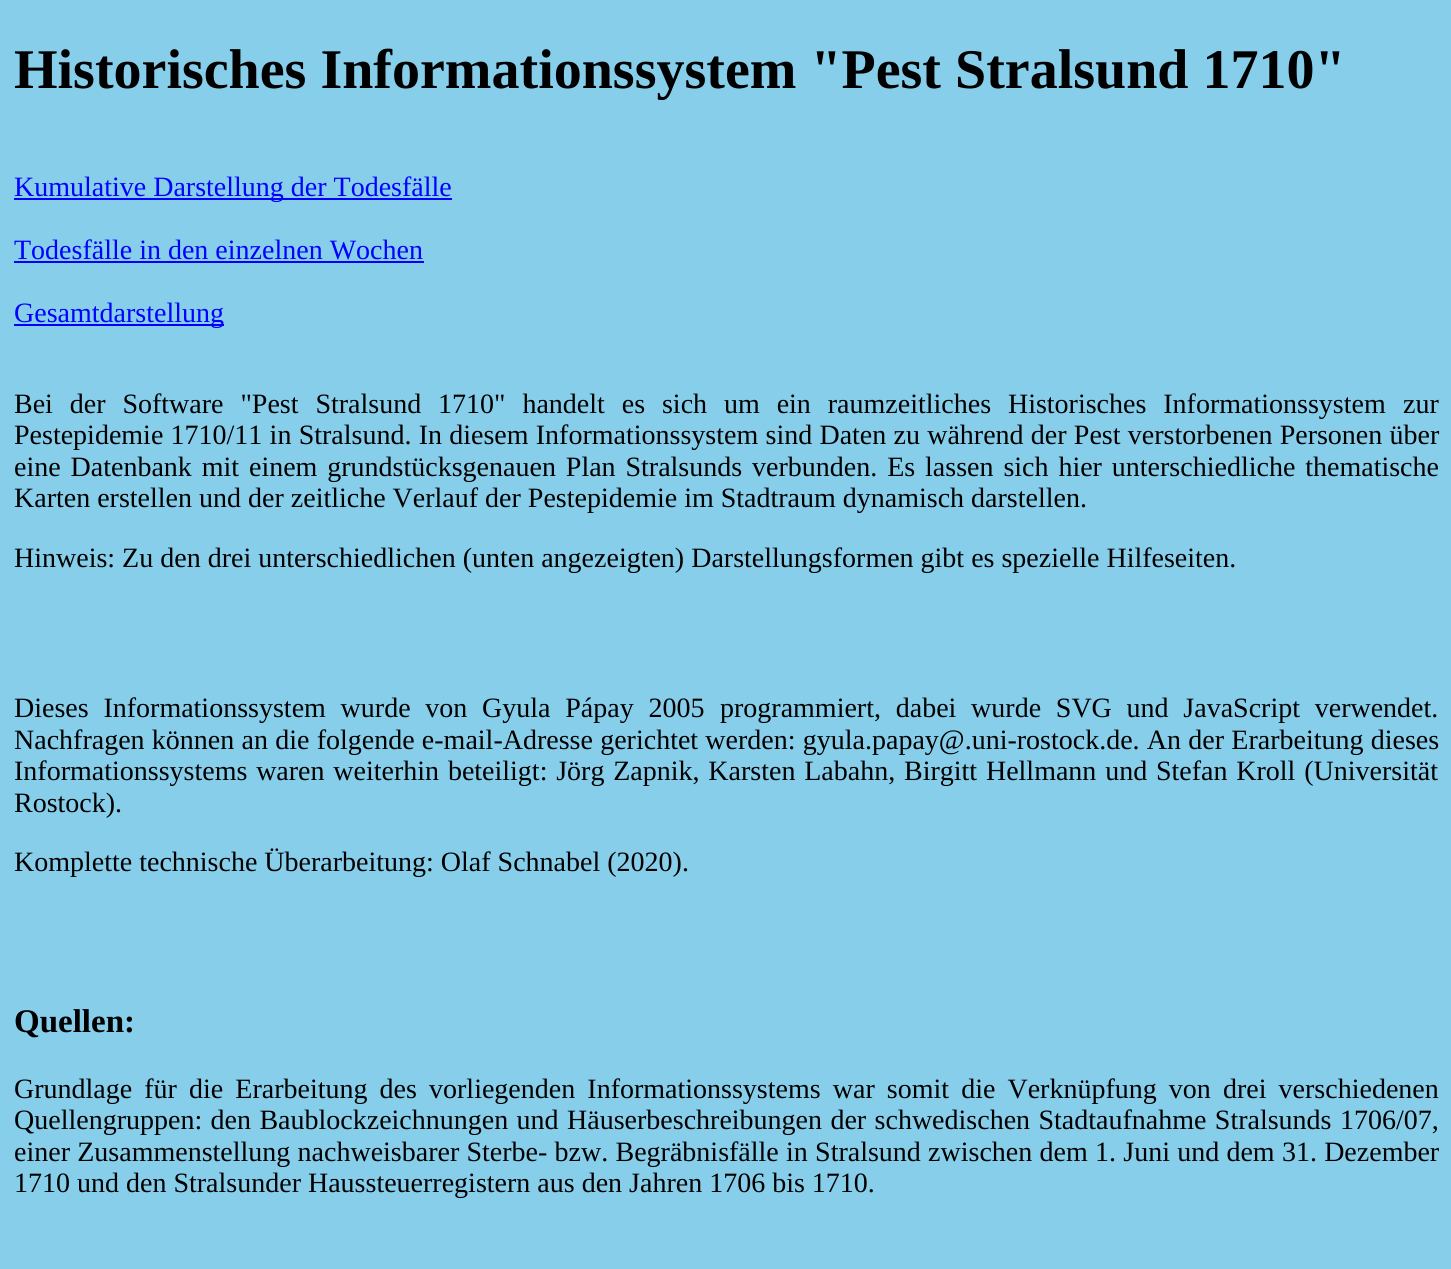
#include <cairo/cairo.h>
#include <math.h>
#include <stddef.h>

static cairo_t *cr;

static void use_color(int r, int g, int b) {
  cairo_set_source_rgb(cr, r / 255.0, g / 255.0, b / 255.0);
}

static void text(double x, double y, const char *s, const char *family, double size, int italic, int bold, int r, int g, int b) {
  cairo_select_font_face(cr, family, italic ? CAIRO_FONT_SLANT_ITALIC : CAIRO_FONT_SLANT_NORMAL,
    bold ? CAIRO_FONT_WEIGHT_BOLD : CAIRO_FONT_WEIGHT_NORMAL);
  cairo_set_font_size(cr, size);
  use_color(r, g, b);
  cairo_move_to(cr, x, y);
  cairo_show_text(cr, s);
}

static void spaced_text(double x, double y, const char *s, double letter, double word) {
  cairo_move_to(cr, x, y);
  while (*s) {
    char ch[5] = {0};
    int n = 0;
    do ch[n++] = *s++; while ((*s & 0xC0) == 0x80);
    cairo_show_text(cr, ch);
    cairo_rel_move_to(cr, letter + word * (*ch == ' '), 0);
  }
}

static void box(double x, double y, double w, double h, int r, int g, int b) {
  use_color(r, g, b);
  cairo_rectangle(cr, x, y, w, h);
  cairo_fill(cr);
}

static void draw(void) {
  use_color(135, 206, 235);
  cairo_paint(cr);
  box(14, 198, 438, 2, 0, 0, 255);
  box(14, 261, 410, 2, 0, 0, 255);
  box(14, 324, 210, 2, 0, 0, 255);
  text(14, 88, "Historisches Informationssystem \"Pest Stralsund 1710\"", "Liberation Serif", 56, 0, 1, 0, 0, 0);
  text(14, 196, "Kumulative Darstellung der Todesfälle", "Liberation Serif", 28, 0, 0, 0, 0, 255);
  text(14, 259, "Todesfälle in den einzelnen Wochen", "Liberation Serif", 28, 0, 0, 0, 0, 255);
  text(14, 322, "Gesamtdarstellung", "Liberation Serif", 28, 0, 0, 0, 0, 255);
  use_color(0, 0, 0);
  spaced_text(14, 413, "Bei der Software \"Pest Stralsund 1710\" handelt es sich um ein raumzeitliches Historisches Informationssystem", 0, 9.9);
  text(1403, 413, "zur", "Liberation Serif", 28, 0, 0, 0, 0, 0);
  spaced_text(14, 444, "Pestepidemie 1710/11 in Stralsund. In diesem Informationssystem sind Daten zu während der Pest verstorbenen Personen über", 0, 0.25);
  spaced_text(14, 476, "eine Datenbank mit einem grundstücksgenauen Plan Stralsunds verbunden. Es lassen sich hier unterschiedliche thematische", 0, 2.9);
  text(14, 507, "Karten erstellen und der zeitliche Verlauf der Pestepidemie im Stadtraum dynamisch darstellen.", "Liberation Serif", 28, 0, 0, 0, 0, 0);
  text(14, 567, "Hinweis: Zu den drei unterschiedlichen (unten angezeigten) Darstellungsformen gibt es spezielle Hilfeseiten.", "Liberation Serif", 28, 0, 0, 0, 0, 0);
  spaced_text(14, 717, "Dieses Informationssystem wurde von Gyula Pápay 2005", 0, 7.75);
  spaced_text(720, 717, "programmiert, dabei wurde SVG und JavaScript verwendet.", 0, 7.75);
  spaced_text(14, 749, "Nachfragen können an die folgende e-mail-Adresse gerichtet werden: gyula.papay@.uni-rostock.de. An der Erarbeitung dieses", 0, 0.25);
  spaced_text(14, 780, "Informationssystems waren weiterhin beteiligt: Jörg Zapnik, Karsten Labahn, Birgitt Hellmann und Stefan Kroll (Universität", 0, 1.8);
  text(14, 812, "Rostock).", "Liberation Serif", 28, 0, 0, 0, 0, 0);
  text(14, 871, "Komplette technische Überarbeitung: Olaf Schnabel (2020).", "Liberation Serif", 28, 0, 0, 0, 0, 0);
  text(14, 1032, "Quellen:", "Liberation Serif", 33, 0, 1, 0, 0, 0);
  cairo_select_font_face(cr, "Liberation Serif", CAIRO_FONT_SLANT_NORMAL, CAIRO_FONT_WEIGHT_NORMAL);
  cairo_set_font_size(cr, 28);
  spaced_text(14, 1098, "Grundlage für die Erarbeitung des vorliegenden Informationssystems war somit die Verknüpfung von drei verschiedenen", 0, 5.1);
  spaced_text(14, 1129, "Quellengruppen: den Baublockzeichnungen und Häuserbeschreibungen der schwedischen Stadtaufnahme Stralsunds 1706/07,", 0, 1.4);
  spaced_text(14, 1161, "einer Zusammenstellung nachweisbarer Sterbe- bzw. Begräbnisfälle in Stralsund zwischen dem 1. Juni und dem 31. Dezember", 0, 0.25);
  text(14, 1192, "1710 und den Stralsunder Haussteuerregistern aus den Jahren 1706 bis 1710.", "Liberation Serif", 28, 0, 0, 0, 0, 0);
}

int main(void) {
  cairo_surface_t *surface = cairo_image_surface_create(CAIRO_FORMAT_RGB24, 1451, 1269);
  cr = cairo_create(surface);
  cairo_font_options_t *options = cairo_font_options_create();
  cairo_font_options_set_hint_metrics(options, CAIRO_HINT_METRICS_OFF);
  cairo_font_options_set_hint_style(options, CAIRO_HINT_STYLE_NONE);
  cairo_set_font_options(cr, options);
  cairo_set_miter_limit(cr, 4);
  draw();
  cairo_surface_write_to_png(surface, "out.png");
  cairo_font_options_destroy(options);
  cairo_destroy(cr);
  cairo_surface_destroy(surface);
  return 0;
}
